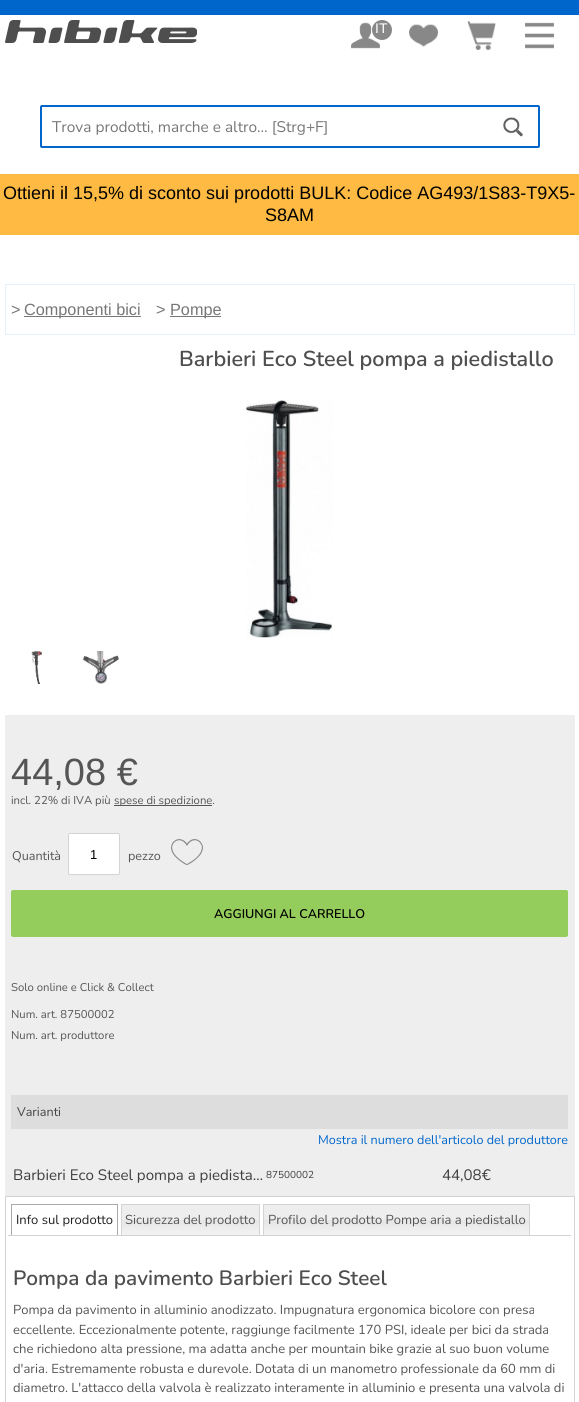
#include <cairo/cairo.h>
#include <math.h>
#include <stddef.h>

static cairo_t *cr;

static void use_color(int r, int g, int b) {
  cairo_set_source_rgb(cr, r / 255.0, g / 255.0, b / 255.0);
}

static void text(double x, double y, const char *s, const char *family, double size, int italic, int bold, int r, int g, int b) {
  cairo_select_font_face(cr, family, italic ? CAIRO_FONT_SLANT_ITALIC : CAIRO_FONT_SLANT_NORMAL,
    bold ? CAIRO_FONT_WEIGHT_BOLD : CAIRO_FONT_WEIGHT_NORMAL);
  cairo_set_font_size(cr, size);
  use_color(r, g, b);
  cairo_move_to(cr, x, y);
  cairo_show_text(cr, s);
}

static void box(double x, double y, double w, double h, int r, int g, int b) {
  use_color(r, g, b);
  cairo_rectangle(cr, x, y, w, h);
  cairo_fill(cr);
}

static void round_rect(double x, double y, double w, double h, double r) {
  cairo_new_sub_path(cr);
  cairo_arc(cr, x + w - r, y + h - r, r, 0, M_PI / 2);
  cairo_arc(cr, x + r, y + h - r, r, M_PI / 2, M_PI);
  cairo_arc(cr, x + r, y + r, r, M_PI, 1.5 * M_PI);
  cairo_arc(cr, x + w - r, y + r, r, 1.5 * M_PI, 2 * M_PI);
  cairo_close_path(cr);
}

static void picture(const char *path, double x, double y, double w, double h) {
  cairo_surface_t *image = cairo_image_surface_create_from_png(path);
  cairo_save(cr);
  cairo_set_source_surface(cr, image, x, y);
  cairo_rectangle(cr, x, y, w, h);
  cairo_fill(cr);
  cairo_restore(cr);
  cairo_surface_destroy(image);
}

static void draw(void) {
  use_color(255, 255, 255);
  cairo_paint(cr);
  box(0, 0, 579, 15, 0, 102, 204);
  picture("img_01.png", 5, 20, 192, 23);
  picture("img_02.png", 351, 22, 29, 27);
  use_color(136, 136, 136);
  cairo_arc(cr, 382, 30, 10, 0, 2 * M_PI);
  cairo_fill(cr);
  picture("img_03.png", 409, 24, 29, 23);
  picture("img_04.png", 467, 21, 29, 29);
  picture("img_05.png", 525, 22, 29, 27);
  round_rect(41, 106, 498, 41, 1);
  use_color(0, 102, 204);
  cairo_stroke(cr);
  picture("img_06.png", 503, 117, 20, 20);
  box(0, 174, 579, 61, 254, 186, 67);
  cairo_rectangle(cr, 5.5, 284.5, 569, 50);
  use_color(230, 240, 250);
  cairo_set_line_width(cr, 1);
  cairo_stroke(cr);
  box(24, 316, 117, 1, 119, 119, 119);
  box(170, 316, 51, 1, 119, 119, 119);
  picture("img_07.png", 246, 400, 87, 238);
  picture("img_08.png", 31, 651, 11, 33);
  picture("img_09.png", 83, 651, 36, 33);
  box(5, 715, 570, 481, 238, 238, 238);
  box(114, 805, 98, 1, 85, 85, 85);
  use_color(255, 255, 255);
  round_rect(68.5, 833.5, 51, 41, 1.5);
  cairo_fill_preserve(cr);
  use_color(211, 211, 211);
  cairo_stroke(cr);
  picture("img_10.png", 171, 839, 32, 26);
  use_color(148, 205, 91);
  round_rect(11, 890, 557, 47, 2);
  cairo_fill(cr);
  box(11, 1095, 557, 34, 221, 221, 221);
  cairo_rectangle(cr, 5.5, 1196.5, 569, 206);
  use_color(211, 211, 211);
  cairo_stroke(cr);
  box(8, 1235, 563, 1, 211, 211, 211);
  box(11, 1204, 107, 1, 170, 170, 170);
  box(117, 1204, 1, 31, 170, 170, 170);
  box(11, 1204, 1, 31, 170, 170, 170);
  picture("img_11.png", 122, 1205, 137, 30);
  box(121, 1204, 139, 1, 211, 211, 211);
  box(259, 1204, 1, 31, 211, 211, 211);
  box(121, 1204, 1, 31, 211, 211, 211);
  picture("img_12.png", 264, 1205, 265, 30);
  box(263, 1204, 267, 1, 211, 211, 211);
  box(529, 1204, 1, 31, 211, 211, 211);
  box(263, 1204, 1, 31, 211, 211, 211);
  text(375, 33, "IT", "Liberation Sans", 14, 0, 0, 255, 255, 255);
  text(52, 132, "Trova prodotti, marche e altro… [Strg+F]", "Nunito", 15.4, 0, 0, 119, 119, 119);
  text(3, 199, "Ottieni il 15,5% di sconto sui prodotti BULK: Codice AG493/1S83-T9X5-", "Liberation Sans", 18, 0, 0, 0, 0, 0);
  text(265, 221, "S8AM", "Liberation Sans", 18, 0, 0, 0, 0, 0);
  text(11, 315, ">", "Liberation Sans", 16.25, 0, 0, 119, 119, 119);
  text(24, 315, "Componenti bici", "Liberation Sans", 16.25, 0, 0, 119, 119, 119);
  text(156, 315, ">", "Liberation Sans", 16.25, 0, 0, 119, 119, 119);
  text(170, 315, "Pompe", "Liberation Sans", 16.25, 0, 0, 119, 119, 119);
  text(179, 366, "Barbieri Eco Steel pompa a piedistallo", "Nunito SemiBold", 21.6, 0, 0, 78, 78, 78);
  text(11, 785, "44,08 €", "Liberation Sans", 38, 0, 0, 85, 85, 85);
  text(11, 804, "incl. 22% di IVA più", "Nunito", 11.3, 0, 0, 85, 85, 85);
  text(114, 804, "spese di spedizione.", "Nunito", 11.3, 0, 0, 85, 85, 85);
  text(12, 860, "Quantità", "Nunito", 12.6, 0, 0, 85, 85, 85);
  text(90, 859, "1", "Liberation Sans", 13, 0, 0, 0, 0, 0);
  text(128, 860, "pezzo", "Nunito", 12.6, 0, 0, 85, 85, 85);
  text(214, 918, "AGGIUNGI AL CARRELLO", "Nunito SemiBold", 12.6, 0, 0, 0, 0, 0);
  text(11, 991, "Solo online e Click & Collect", "Nunito", 11.3, 0, 0, 85, 85, 85);
  text(11, 1018, "Num. art. 87500002", "Nunito", 11.3, 0, 0, 85, 85, 85);
  text(11, 1039, "Num. art. produttore", "Nunito", 11.3, 0, 0, 85, 85, 85);
  text(17, 1116, "Varianti", "Nunito", 12.6, 0, 0, 68, 68, 68);
  text(318, 1144, "Mostra il numero dell'articolo del produttore", "Nunito", 12.6, 0, 0, 0, 102, 204);
  text(13, 1180, "Barbieri Eco Steel pompa a piedista…", "Nunito", 15.1, 0, 0, 62, 62, 62);
  text(266, 1178, "87500002", "Nunito", 10, 0, 0, 62, 62, 62);
  text(442, 1180, "44,08€", "Nunito", 15.1, 0, 0, 62, 62, 62);
  text(16, 1224, "Info sul prodotto", "Nunito", 13, 0, 0, 33, 33, 33);
  text(125, 1224, "Sicurezza del prodotto", "Nunito", 13, 0, 0, 85, 85, 85);
  text(268, 1224, "Profilo del prodotto Pompe aria a piedistallo", "Nunito", 13, 0, 0, 85, 85, 85);
  text(13, 1285, "Pompa da pavimento Barbieri Eco Steel", "Nunito SemiBold", 20.75, 0, 0, 78, 78, 78);
  text(13, 1314, "Pompa da pavimento in alluminio anodizzato. Impugnatura ergonomica bicolore con presa", "Nunito", 13, 0, 0, 85, 85, 85);
  text(13, 1334, "eccellente. Eccezionalmente potente, raggiunge facilmente 170 PSI, ideale per bici da strada", "Nunito", 13, 0, 0, 85, 85, 85);
  text(13, 1353, "che richiedono alta pressione, ma adatta anche per mountain bike grazie al suo buon volume", "Nunito", 13, 0, 0, 85, 85, 85);
  text(13, 1373, "d'aria. Estremamente robusta e durevole. Dotata di un manometro professionale da 60 mm di", "Nunito", 13, 0, 0, 85, 85, 85);
  text(13, 1392, "diametro. L'attacco della valvola è realizzato interamente in alluminio e presenta una valvola di", "Nunito", 13, 0, 0, 85, 85, 85);
}

int main(void) {
  cairo_surface_t *surface = cairo_image_surface_create(CAIRO_FORMAT_RGB24, 579, 1402);
  cr = cairo_create(surface);
  cairo_font_options_t *options = cairo_font_options_create();
  cairo_font_options_set_hint_metrics(options, CAIRO_HINT_METRICS_OFF);
  cairo_font_options_set_hint_style(options, CAIRO_HINT_STYLE_NONE);
  cairo_set_font_options(cr, options);
  cairo_set_miter_limit(cr, 4);
  draw();
  cairo_surface_write_to_png(surface, "out.png");
  cairo_font_options_destroy(options);
  cairo_destroy(cr);
  cairo_surface_destroy(surface);
  return 0;
}
